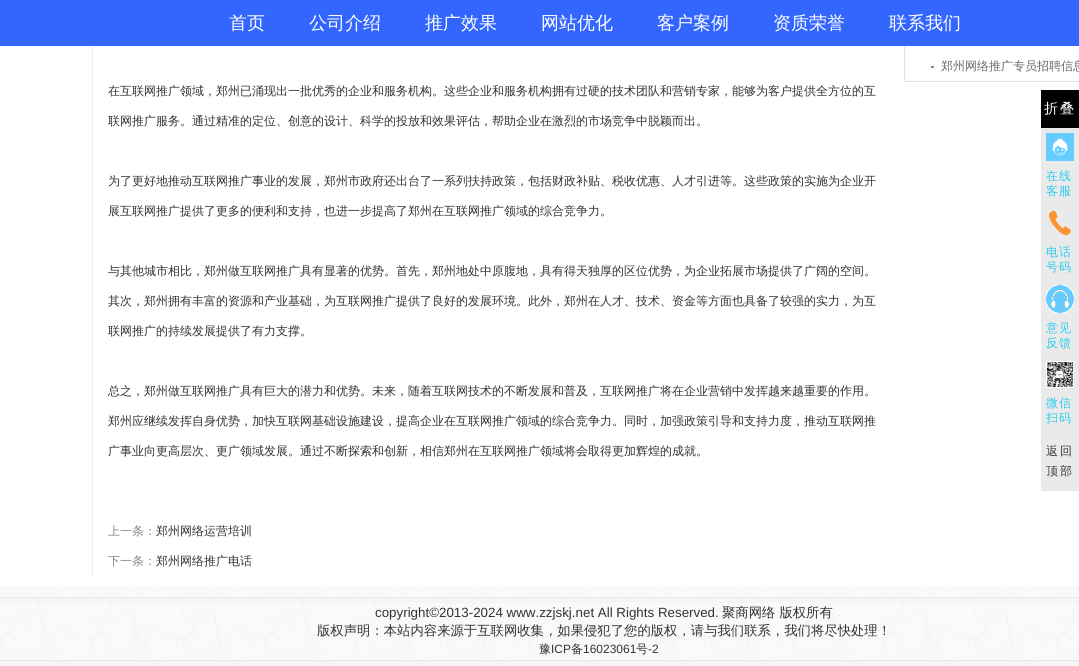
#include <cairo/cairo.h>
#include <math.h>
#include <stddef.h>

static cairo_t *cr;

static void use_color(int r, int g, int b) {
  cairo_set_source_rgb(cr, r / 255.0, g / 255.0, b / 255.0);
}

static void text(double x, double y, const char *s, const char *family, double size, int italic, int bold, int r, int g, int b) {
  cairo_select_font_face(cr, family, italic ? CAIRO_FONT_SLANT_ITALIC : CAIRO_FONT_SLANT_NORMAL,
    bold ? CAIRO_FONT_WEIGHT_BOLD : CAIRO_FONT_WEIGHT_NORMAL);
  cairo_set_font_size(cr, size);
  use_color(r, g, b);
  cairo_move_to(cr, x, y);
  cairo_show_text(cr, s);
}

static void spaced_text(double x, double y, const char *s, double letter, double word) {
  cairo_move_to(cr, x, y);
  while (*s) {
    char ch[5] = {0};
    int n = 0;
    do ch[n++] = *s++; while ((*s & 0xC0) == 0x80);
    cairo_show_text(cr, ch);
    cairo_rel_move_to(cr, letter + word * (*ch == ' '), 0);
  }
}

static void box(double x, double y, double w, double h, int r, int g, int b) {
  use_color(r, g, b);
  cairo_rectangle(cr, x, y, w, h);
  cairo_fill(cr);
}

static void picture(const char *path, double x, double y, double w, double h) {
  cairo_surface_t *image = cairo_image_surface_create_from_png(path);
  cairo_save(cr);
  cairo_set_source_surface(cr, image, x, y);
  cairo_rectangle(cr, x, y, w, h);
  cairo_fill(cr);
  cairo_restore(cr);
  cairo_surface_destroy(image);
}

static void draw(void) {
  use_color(255, 255, 255);
  cairo_paint(cr);
  box(0, 0, 1079, 46, 51, 102, 255);
  box(904, 81, 175, 1, 226, 226, 226);
  box(904, 46, 1, 36, 226, 226, 226);
  box(931, 66, 3, 2, 135, 135, 135);
  box(92, 46, 1, 530, 236, 236, 236);
  picture("img_01.png", 0, 586, 1079, 80);
  box(1041, 128, 38, 363, 234, 234, 234);
  box(1041, 90, 38, 38, 0, 0, 0);
  picture("img_02.png", 1046, 133, 28, 28);
  picture("img_03.png", 1049, 210, 22, 26);
  picture("img_04.png", 1046, 285, 28, 28);
  picture("img_05.png", 1046, 361, 28, 27);
  text(229, 29, "首页", "WenQuanYi Zen Hei Medium", 18, 0, 0, 255, 255, 255);
  text(309, 29, "公司介绍", "WenQuanYi Zen Hei Medium", 18, 0, 0, 255, 255, 255);
  text(425, 29, "推广效果", "WenQuanYi Zen Hei Medium", 18, 0, 0, 255, 255, 255);
  text(541, 29, "网站优化", "WenQuanYi Zen Hei Medium", 18, 0, 0, 255, 255, 255);
  text(657, 29, "客户案例", "WenQuanYi Zen Hei Medium", 18, 0, 0, 255, 255, 255);
  text(773, 29, "资质荣誉", "WenQuanYi Zen Hei Medium", 18, 0, 0, 255, 255, 255);
  text(889, 29, "联系我们", "WenQuanYi Zen Hei Medium", 18, 0, 0, 255, 255, 255);
  text(941, 70, "郑州网络推广专员招聘信息", "WenQuanYi Zen Hei Medium", 12, 0, 0, 105, 105, 105);
  text(108, 95, "在互联网推广领域，郑州已涌现出一批优秀的企业和服务机构。这些企业和服务机构拥有过硬的技术团队和营销专家，能够为客户提供全方位的互", "WenQuanYi Zen Hei Medium", 12, 0, 0, 51, 51, 51);
  text(108, 125, "联网推广服务。通过精准的定位、创意的设计、科学的投放和效果评估，帮助企业在激烈的市场竞争中脱颖而出。", "WenQuanYi Zen Hei Medium", 12, 0, 0, 51, 51, 51);
  text(108, 185, "为了更好地推动互联网推广事业的发展，郑州市政府还出台了一系列扶持政策，包括财政补贴、税收优惠、人才引进等。这些政策的实施为企业开", "WenQuanYi Zen Hei Medium", 12, 0, 0, 51, 51, 51);
  text(108, 215, "展互联网推广提供了更多的便利和支持，也进一步提高了郑州在互联网推广领域的综合竞争力。", "WenQuanYi Zen Hei Medium", 12, 0, 0, 51, 51, 51);
  text(108, 275, "与其他城市相比，郑州做互联网推广具有显著的优势。首先，郑州地处中原腹地，具有得天独厚的区位优势，为企业拓展市场提供了广阔的空间。", "WenQuanYi Zen Hei Medium", 12, 0, 0, 51, 51, 51);
  text(108, 305, "其次，郑州拥有丰富的资源和产业基础，为互联网推广提供了良好的发展环境。此外，郑州在人才、技术、资金等方面也具备了较强的实力，为互", "WenQuanYi Zen Hei Medium", 12, 0, 0, 51, 51, 51);
  text(108, 335, "联网推广的持续发展提供了有力支撑。", "WenQuanYi Zen Hei Medium", 12, 0, 0, 51, 51, 51);
  text(108, 395, "总之，郑州做互联网推广具有巨大的潜力和优势。未来，随着互联网技术的不断发展和普及，互联网推广将在企业营销中发挥越来越重要的作用。", "WenQuanYi Zen Hei Medium", 12, 0, 0, 51, 51, 51);
  text(108, 425, "郑州应继续发挥自身优势，加快互联网基础设施建设，提高企业在互联网推广领域的综合竞争力。同时，加强政策引导和支持力度，推动互联网推", "WenQuanYi Zen Hei Medium", 12, 0, 0, 51, 51, 51);
  text(108, 455, "广事业向更高层次、更广领域发展。通过不断探索和创新，相信郑州在互联网推广领域将会取得更加辉煌的成就。", "WenQuanYi Zen Hei Medium", 12, 0, 0, 51, 51, 51);
  text(108, 535, "上一条：", "WenQuanYi Zen Hei Medium", 12, 0, 0, 136, 136, 136);
  text(156, 535, "郑州网络运营培训", "WenQuanYi Zen Hei Medium", 12, 0, 0, 51, 51, 51);
  text(108, 565, "下一条：", "WenQuanYi Zen Hei Medium", 12, 0, 0, 136, 136, 136);
  text(156, 565, "郑州网络推广电话", "WenQuanYi Zen Hei Medium", 12, 0, 0, 51, 51, 51);
  text(375, 617, "copyright©2013-2024 www.zzjskj.net All Rights Reserved.", "Liberation Sans", 13.35, 0, 0, 51, 51, 51);
  text(722, 617, "聚商网络 版权所有", "WenQuanYi Zen Hei Medium", 13.35, 0, 0, 51, 51, 51);
  text(317, 635, "版权声明：本站内容来源于互联网收集，如果侵犯了您的版权，请与我们联系，我们将尽快处理！", "WenQuanYi Zen Hei Medium", 13.35, 0, 0, 51, 51, 51);
  text(539, 653, "豫", "WenQuanYi Zen Hei Medium", 12, 0, 0, 51, 51, 51);
  text(551, 653, "ICP", "Liberation Sans", 12, 0, 0, 51, 51, 51);
  text(571, 653, "备", "WenQuanYi Zen Hei Medium", 12, 0, 0, 51, 51, 51);
  text(583, 653, "16023061", "Liberation Sans", 12, 0, 0, 51, 51, 51);
  text(636, 653, "号", "WenQuanYi Zen Hei Medium", 12, 0, 0, 51, 51, 51);
  text(648, 653, "-2", "Liberation Sans", 12, 0, 0, 51, 51, 51);
  cairo_select_font_face(cr, "WenQuanYi Zen Hei Medium", CAIRO_FONT_SLANT_NORMAL, CAIRO_FONT_WEIGHT_NORMAL);
  cairo_set_font_size(cr, 14);
  use_color(255, 255, 255);
  spaced_text(1044, 113, "折叠", 2, 0);
  cairo_set_font_size(cr, 12);
  use_color(41, 204, 239);
  spaced_text(1046, 180, "在线", 1, 0);
  spaced_text(1046, 195, "客服", 1, 0);
  spaced_text(1046, 256, "电话", 1, 0);
  spaced_text(1046, 271, "号码", 1, 0);
  spaced_text(1046, 332, "意见", 1, 0);
  spaced_text(1046, 347, "反馈", 1, 0);
  spaced_text(1046, 407, "微信", 1, 0);
  spaced_text(1046, 422, "扫码", 1, 0);
  use_color(59, 59, 59);
  spaced_text(1046, 455, "返回", 2, 0);
  spaced_text(1046, 475, "顶部", 2, 0);
}

int main(void) {
  cairo_surface_t *surface = cairo_image_surface_create(CAIRO_FORMAT_RGB24, 1079, 666);
  cr = cairo_create(surface);
  cairo_font_options_t *options = cairo_font_options_create();
  cairo_font_options_set_hint_metrics(options, CAIRO_HINT_METRICS_OFF);
  cairo_font_options_set_hint_style(options, CAIRO_HINT_STYLE_NONE);
  cairo_set_font_options(cr, options);
  cairo_set_miter_limit(cr, 4);
  draw();
  cairo_surface_write_to_png(surface, "out.png");
  cairo_font_options_destroy(options);
  cairo_destroy(cr);
  cairo_surface_destroy(surface);
  return 0;
}
